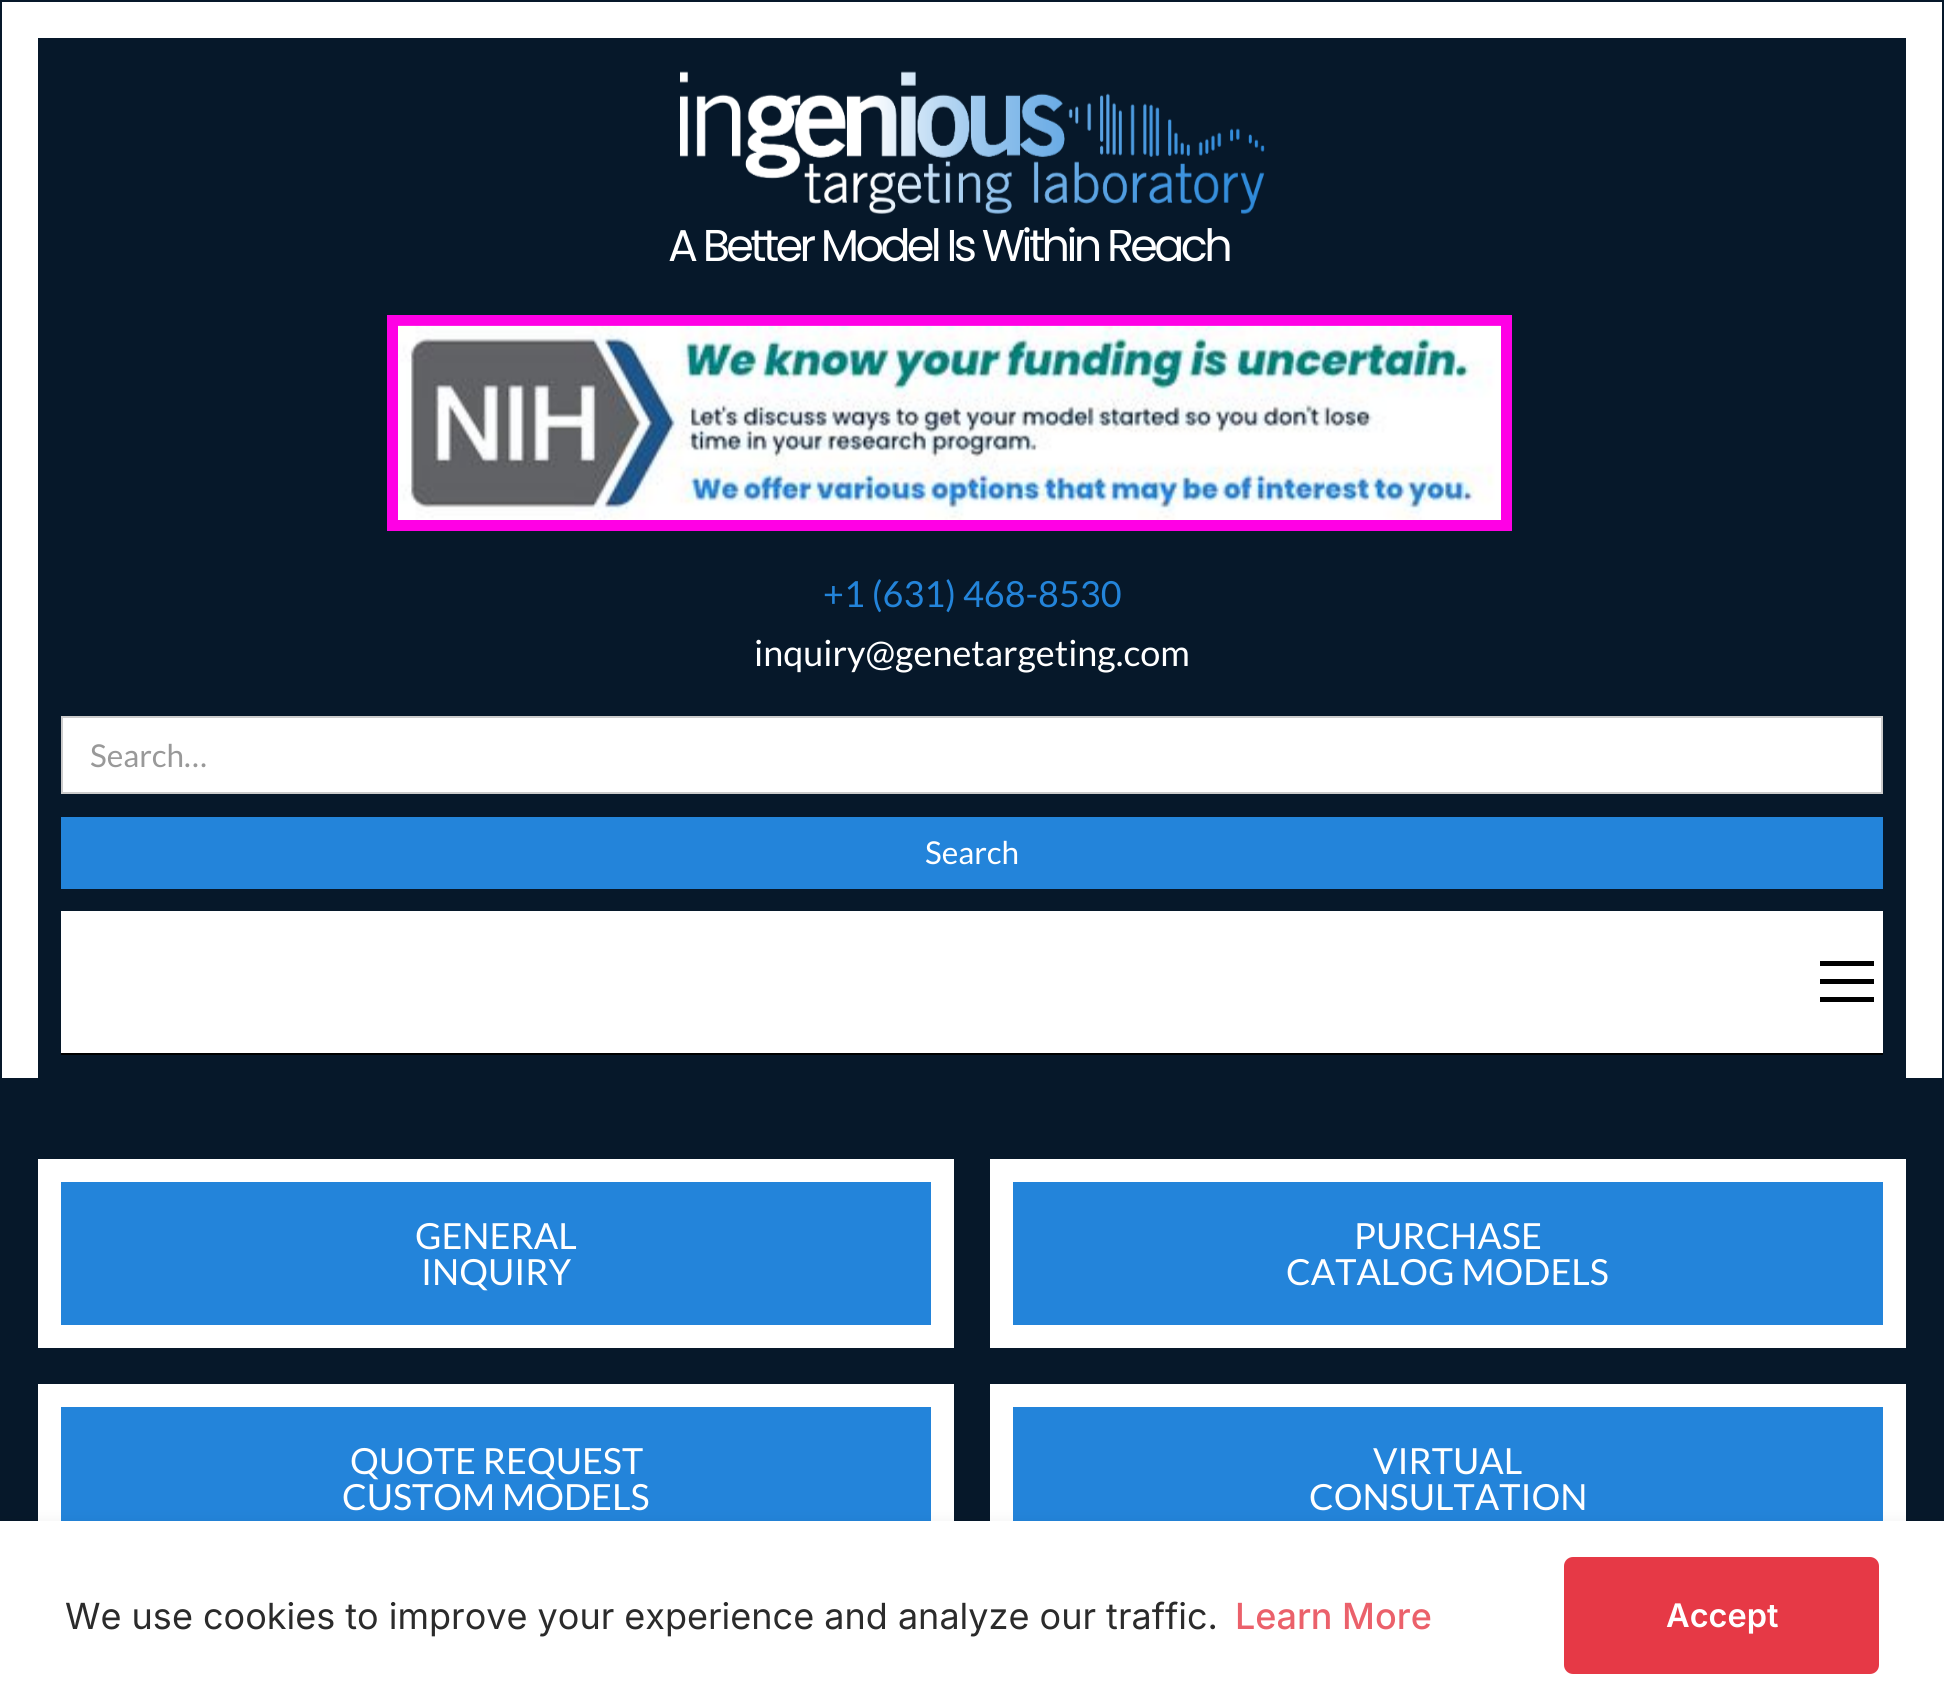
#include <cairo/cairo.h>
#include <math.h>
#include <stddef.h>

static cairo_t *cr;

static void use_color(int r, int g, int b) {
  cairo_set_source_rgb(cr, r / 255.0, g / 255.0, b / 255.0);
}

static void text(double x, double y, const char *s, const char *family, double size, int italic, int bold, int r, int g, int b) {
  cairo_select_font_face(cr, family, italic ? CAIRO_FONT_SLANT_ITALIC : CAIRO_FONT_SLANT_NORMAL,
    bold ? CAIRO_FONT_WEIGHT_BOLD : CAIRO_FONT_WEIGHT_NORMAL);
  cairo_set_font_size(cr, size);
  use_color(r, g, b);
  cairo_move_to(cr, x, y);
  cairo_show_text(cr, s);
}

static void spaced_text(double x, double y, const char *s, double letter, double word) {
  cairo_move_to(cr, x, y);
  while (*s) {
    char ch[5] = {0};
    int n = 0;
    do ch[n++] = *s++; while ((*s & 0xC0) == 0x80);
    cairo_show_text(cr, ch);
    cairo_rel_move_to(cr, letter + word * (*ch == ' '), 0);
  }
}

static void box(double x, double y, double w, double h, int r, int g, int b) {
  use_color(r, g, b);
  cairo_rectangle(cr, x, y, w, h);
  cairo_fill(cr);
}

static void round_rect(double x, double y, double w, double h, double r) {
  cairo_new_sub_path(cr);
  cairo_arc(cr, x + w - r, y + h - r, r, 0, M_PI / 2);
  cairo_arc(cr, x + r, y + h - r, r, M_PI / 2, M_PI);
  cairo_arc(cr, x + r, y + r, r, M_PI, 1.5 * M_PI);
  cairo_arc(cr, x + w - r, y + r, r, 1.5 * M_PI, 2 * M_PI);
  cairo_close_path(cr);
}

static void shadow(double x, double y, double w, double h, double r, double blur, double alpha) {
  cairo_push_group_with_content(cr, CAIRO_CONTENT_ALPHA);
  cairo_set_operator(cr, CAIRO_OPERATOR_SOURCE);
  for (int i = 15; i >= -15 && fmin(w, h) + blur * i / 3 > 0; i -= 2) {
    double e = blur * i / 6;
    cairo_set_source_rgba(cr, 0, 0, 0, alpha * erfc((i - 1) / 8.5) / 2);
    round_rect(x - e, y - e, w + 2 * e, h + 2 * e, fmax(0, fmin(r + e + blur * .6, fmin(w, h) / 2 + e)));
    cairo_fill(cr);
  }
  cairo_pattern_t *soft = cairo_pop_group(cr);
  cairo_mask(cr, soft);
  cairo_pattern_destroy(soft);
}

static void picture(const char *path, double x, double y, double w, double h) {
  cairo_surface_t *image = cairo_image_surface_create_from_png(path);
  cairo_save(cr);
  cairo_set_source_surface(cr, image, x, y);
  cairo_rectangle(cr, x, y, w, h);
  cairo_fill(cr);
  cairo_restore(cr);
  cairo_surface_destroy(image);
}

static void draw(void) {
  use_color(6, 24, 42);
  cairo_paint(cr);
  box(2, 2, 1940, 1076, 255, 255, 255);
  box(38, 38, 1868, 1040, 6, 24, 42);
  picture("img_01.png", 680, 71, 585, 143);
  use_color(255, 255, 255);
  cairo_rectangle(cr, 392.5, 320.5, 1114, 205);
  cairo_fill_preserve(cr);
  use_color(255, 0, 229);
  cairo_set_line_width(cr, 11);
  cairo_stroke(cr);
  picture("img_02.png", 398, 325, 1103, 195);
  use_color(255, 255, 255);
  cairo_rectangle(cr, 62, 717, 1820, 76);
  cairo_fill_preserve(cr);
  use_color(204, 204, 204);
  cairo_set_line_width(cr, 2);
  cairo_stroke(cr);
  box(61, 817, 1822, 72, 35, 132, 218);
  box(61, 911, 1822, 142, 255, 255, 255);
  box(61, 1053, 1822, 2, 0, 0, 0);
  box(1820, 961, 54, 5, 0, 0, 0);
  box(1820, 979, 54, 5, 0, 0, 0);
  box(1820, 997, 54, 5, 0, 0, 0);
  use_color(35, 132, 218);
  cairo_rectangle(cr, 49.5, 1170.5, 893, 166);
  cairo_fill_preserve(cr);
  use_color(255, 255, 255);
  cairo_set_line_width(cr, 23);
  cairo_stroke(cr);
  use_color(35, 132, 218);
  cairo_rectangle(cr, 1001.5, 1170.5, 893, 166);
  cairo_fill_preserve(cr);
  use_color(255, 255, 255);
  cairo_stroke(cr);
  box(61, 1407, 870, 114, 35, 132, 218);
  cairo_rectangle(cr, 49.5, 1395.5, 893, 166);
  use_color(255, 255, 255);
  cairo_stroke(cr);
  box(1013, 1407, 870, 114, 35, 132, 218);
  cairo_rectangle(cr, 1001.5, 1395.5, 893, 166);
  use_color(255, 255, 255);
  cairo_stroke(cr);
  use_color(0, 0, 0);
  shadow(0, 1526, 1944, 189, 0, 9, 0.1);
  box(0, 1521, 1944, 187, 255, 255, 255);
  use_color(230, 57, 70);
  round_rect(1564, 1557, 315, 117, 9);
  cairo_fill(cr);
  cairo_select_font_face(cr, "Poppins", CAIRO_FONT_SLANT_NORMAL, CAIRO_FONT_WEIGHT_NORMAL);
  cairo_set_font_size(cr, 44.5);
  use_color(255, 255, 255);
  spaced_text(668, 261, "A Better Model Is Within Reach", -3.6, 0);
  text(823, 607, "+1 (631) 468-8530", "Lato", 36, 0, 0, 35, 132, 218);
  text(754, 666, "inquiry@genetargeting.com", "Lato", 36, 0, 0, 255, 255, 255);
  text(90, 767, "Search…", "Lato", 31.5, 0, 0, 153, 153, 153);
  text(925, 864, "Search", "Lato", 31.5, 0, 0, 255, 255, 255);
  text(415, 1249, "GENERAL", "Lato", 36, 0, 0, 255, 255, 255);
  text(421, 1285, "INQUIRY", "Lato", 36, 0, 0, 255, 255, 255);
  text(1354, 1249, "PURCHASE", "Lato", 36, 0, 0, 255, 255, 255);
  text(1286, 1285, "CATALOG MODELS", "Lato", 36, 0, 0, 255, 255, 255);
  text(350, 1474, "QUOTE REQUEST", "Lato", 36, 0, 0, 255, 255, 255);
  text(342, 1510, "CUSTOM MODELS", "Lato", 36, 0, 0, 255, 255, 255);
  text(1373, 1474, "VIRTUAL", "Lato", 36, 0, 0, 255, 255, 255);
  text(1309, 1510, "CONSULTATION", "Lato", 36, 0, 0, 255, 255, 255);
  text(65, 1629, "We use cookies to improve your experience and analyze our traffic.", "Inter", 36, 0, 0, 43, 43, 43);
  text(1235, 1629, "Learn More", "Inter Medium", 36, 0, 0, 235, 97, 107);
  text(1666, 1627, "Accept", "Inter SemiBold", 32.5, 0, 0, 255, 255, 255);
}

int main(void) {
  cairo_surface_t *surface = cairo_image_surface_create(CAIRO_FORMAT_RGB24, 1944, 1708);
  cr = cairo_create(surface);
  cairo_font_options_t *options = cairo_font_options_create();
  cairo_font_options_set_hint_metrics(options, CAIRO_HINT_METRICS_OFF);
  cairo_font_options_set_hint_style(options, CAIRO_HINT_STYLE_NONE);
  cairo_set_font_options(cr, options);
  cairo_set_miter_limit(cr, 4);
  draw();
  cairo_surface_write_to_png(surface, "out.png");
  cairo_font_options_destroy(options);
  cairo_destroy(cr);
  cairo_surface_destroy(surface);
  return 0;
}
